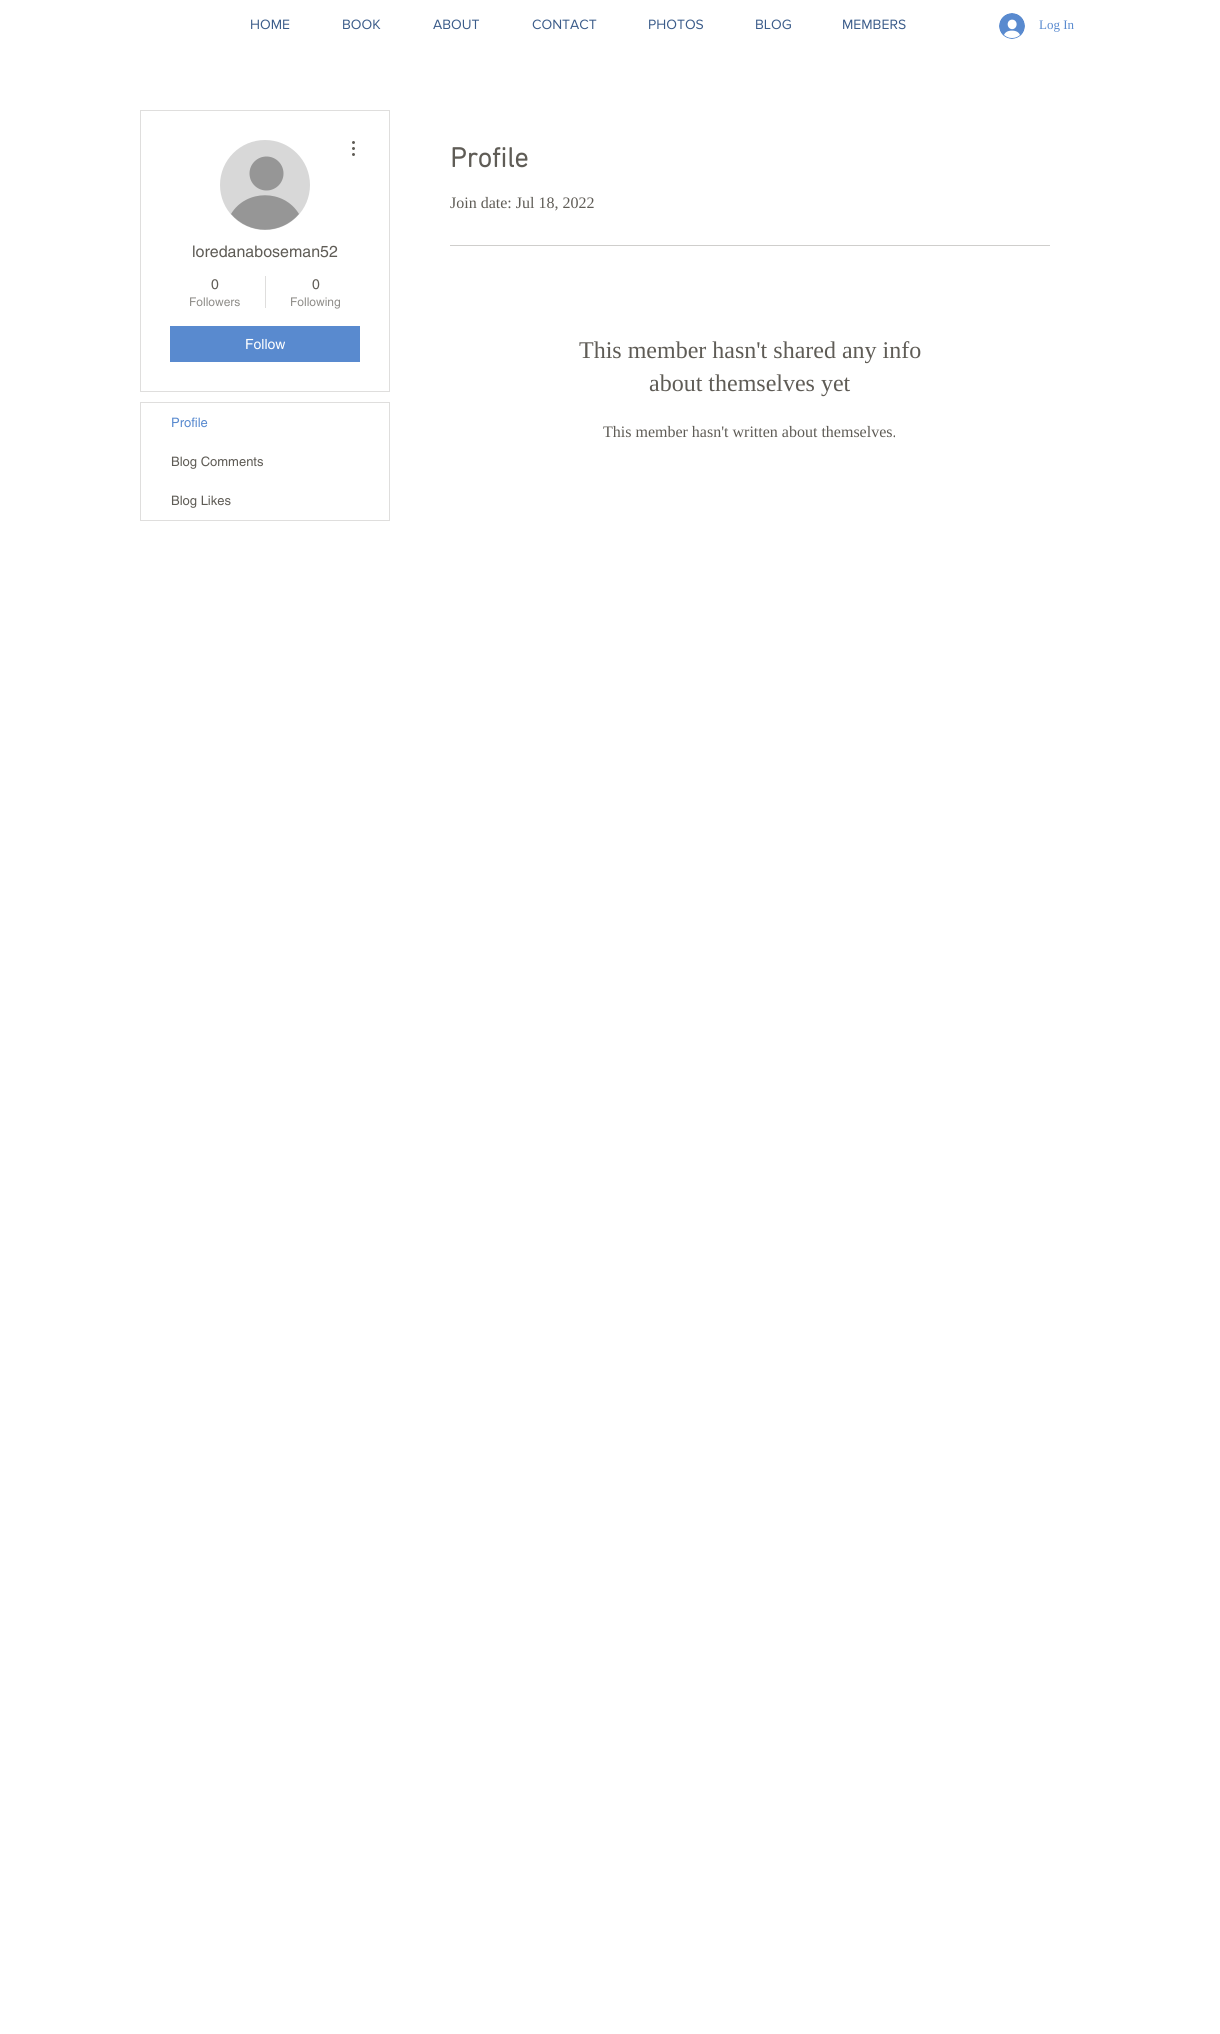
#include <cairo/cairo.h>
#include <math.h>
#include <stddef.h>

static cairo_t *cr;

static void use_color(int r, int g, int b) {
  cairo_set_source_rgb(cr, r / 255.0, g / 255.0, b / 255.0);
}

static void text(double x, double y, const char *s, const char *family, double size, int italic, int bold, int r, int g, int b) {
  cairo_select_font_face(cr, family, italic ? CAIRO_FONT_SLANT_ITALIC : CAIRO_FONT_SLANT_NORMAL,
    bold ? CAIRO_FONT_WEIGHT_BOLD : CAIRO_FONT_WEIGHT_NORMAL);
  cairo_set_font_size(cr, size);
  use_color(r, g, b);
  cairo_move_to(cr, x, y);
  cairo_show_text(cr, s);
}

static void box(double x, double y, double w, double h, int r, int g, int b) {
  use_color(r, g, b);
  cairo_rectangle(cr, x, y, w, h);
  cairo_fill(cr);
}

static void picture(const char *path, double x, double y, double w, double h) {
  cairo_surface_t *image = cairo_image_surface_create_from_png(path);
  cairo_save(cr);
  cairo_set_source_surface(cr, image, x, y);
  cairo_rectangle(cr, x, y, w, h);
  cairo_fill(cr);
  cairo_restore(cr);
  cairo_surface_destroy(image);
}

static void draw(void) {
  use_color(255, 255, 255);
  cairo_paint(cr);
  picture("img_01.png", 999, 13, 26, 26);
  cairo_rectangle(cr, 140.5, 110.5, 249, 281);
  use_color(223, 222, 221);
  cairo_set_line_width(cr, 1);
  cairo_stroke(cr);
  use_color(216, 216, 216);
  cairo_arc(cr, 265, 185, 45, 0, 2 * M_PI);
  cairo_fill(cr);
  use_color(150, 150, 150);
  cairo_arc(cr, 266.5, 173.5, 17, 0, 2 * M_PI);
  cairo_fill(cr);
  cairo_new_path(cr);
  cairo_move_to(cr, 299, 214);
  cairo_curve_to(cr, 281, 235, 249, 235, 231, 214);
  cairo_curve_to(cr, 246, 189, 284, 189, 299, 214);
  cairo_close_path(cr);
  cairo_fill(cr);
  picture("img_02.png", 352, 141, 3, 15);
  box(265, 276, 1, 32, 223, 222, 221);
  box(170, 326, 190, 36, 89, 138, 207);
  cairo_rectangle(cr, 140.5, 402.5, 249, 118);
  use_color(223, 222, 221);
  cairo_stroke(cr);
  box(450, 245, 600, 1, 207, 206, 204);
  text(250, 29, "HOME", "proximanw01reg", 14, 0, 0, 59, 92, 138);
  text(342, 29, "BOOK", "proximanw01reg", 14, 0, 0, 59, 92, 138);
  text(433, 29, "ABOUT", "proximanw01reg", 14, 0, 0, 59, 92, 138);
  text(532, 29, "CONTACT", "proximanw01reg", 14, 0, 0, 59, 92, 138);
  text(648, 29, "PHOTOS", "proximanw01reg", 14, 0, 0, 59, 92, 138);
  text(755, 29, "BLOG", "proximanw01reg", 14, 0, 0, 59, 92, 138);
  text(842, 29, "MEMBERS", "proximanw01reg", 14, 0, 0, 59, 92, 138);
  text(1039, 29, "Log In", "Liberation Serif", 13, 0, 0, 89, 138, 207);
  text(192, 257, "loredanaboseman52", "helvetica", 16, 0, 0, 95, 92, 86);
  text(211, 289, "0", "helvetica", 14, 0, 0, 95, 92, 86);
  text(189, 306, "Followers", "helvetica", 12, 0, 0, 143, 141, 137);
  text(312, 289, "0", "helvetica", 14, 0, 0, 95, 92, 86);
  text(290, 306, "Following", "helvetica", 12, 0, 0, 143, 141, 137);
  text(245, 349, "Follow", "helvetica", 14, 0, 0, 255, 255, 255);
  text(171, 427, "Profile", "helvetica", 13, 0, 0, 89, 138, 207);
  text(171, 466, "Blog Comments", "helvetica", 13, 0, 0, 95, 92, 86);
  text(171, 505, "Blog Likes", "helvetica", 13, 0, 0, 95, 92, 86);
  text(450, 167, "Profile", "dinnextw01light", 28, 0, 1, 95, 92, 86);
  text(450, 208, "Join date: Jul 18, 2022", "Liberation Serif", 16, 0, 0, 95, 92, 86);
  text(579, 358, "This member hasn't shared any info", "Liberation Serif", 24, 0, 0, 95, 92, 86);
  text(649, 391, "about themselves yet", "Liberation Serif", 24, 0, 0, 95, 92, 86);
  text(603, 437, "This member hasn't written about themselves.", "Liberation Serif", 16, 0, 0, 95, 92, 86);
}

int main(void) {
  cairo_surface_t *surface = cairo_image_surface_create(CAIRO_FORMAT_RGB24, 1220, 2034);
  cr = cairo_create(surface);
  cairo_font_options_t *options = cairo_font_options_create();
  cairo_font_options_set_hint_metrics(options, CAIRO_HINT_METRICS_OFF);
  cairo_font_options_set_hint_style(options, CAIRO_HINT_STYLE_NONE);
  cairo_set_font_options(cr, options);
  cairo_set_miter_limit(cr, 4);
  draw();
  cairo_surface_write_to_png(surface, "out.png");
  cairo_font_options_destroy(options);
  cairo_destroy(cr);
  cairo_surface_destroy(surface);
  return 0;
}
